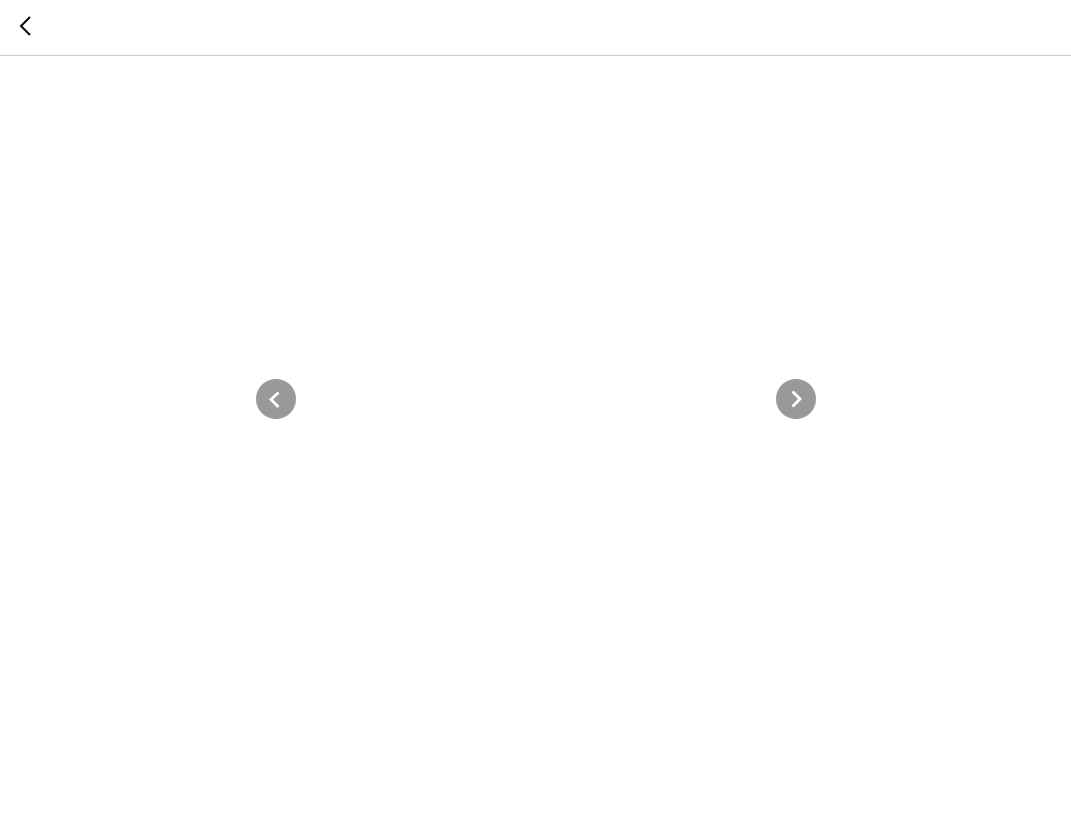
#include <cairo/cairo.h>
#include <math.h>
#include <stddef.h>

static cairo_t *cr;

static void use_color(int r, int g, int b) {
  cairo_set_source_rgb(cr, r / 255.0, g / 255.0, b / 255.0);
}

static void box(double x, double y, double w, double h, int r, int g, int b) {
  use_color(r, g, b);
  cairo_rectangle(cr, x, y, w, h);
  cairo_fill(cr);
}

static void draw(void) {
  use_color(255, 255, 255);
  cairo_paint(cr);
  box(0, 55, 1071, 1, 204, 204, 204);
  cairo_new_path(cr);
  cairo_move_to(cr, 30, 35);
  cairo_line_to(cr, 21, 26);
  cairo_line_to(cr, 30, 17);
  use_color(0, 0, 0);
  cairo_stroke(cr);
  use_color(153, 153, 153);
  cairo_arc(cr, 276, 399, 20, 0, 2 * M_PI);
  cairo_fill(cr);
  cairo_new_path(cr);
  cairo_move_to(cr, 278.5, 407);
  cairo_line_to(cr, 271, 399.5);
  cairo_line_to(cr, 278.5, 392.5);
  use_color(255, 255, 255);
  cairo_set_line_width(cr, 2.8);
  cairo_stroke(cr);
  use_color(153, 153, 153);
  cairo_arc(cr, 796, 399, 20, 0, 2 * M_PI);
  cairo_fill(cr);
  cairo_new_path(cr);
  cairo_move_to(cr, 792.5, 391.5);
  cairo_line_to(cr, 800, 399);
  cairo_line_to(cr, 792.5, 406.5);
  use_color(255, 255, 255);
  cairo_stroke(cr);
}

int main(void) {
  cairo_surface_t *surface = cairo_image_surface_create(CAIRO_FORMAT_RGB24, 1071, 825);
  cr = cairo_create(surface);
  cairo_font_options_t *options = cairo_font_options_create();
  cairo_font_options_set_hint_metrics(options, CAIRO_HINT_METRICS_OFF);
  cairo_font_options_set_hint_style(options, CAIRO_HINT_STYLE_NONE);
  cairo_set_font_options(cr, options);
  cairo_set_miter_limit(cr, 4);
  draw();
  cairo_surface_write_to_png(surface, "out.png");
  cairo_font_options_destroy(options);
  cairo_destroy(cr);
  cairo_surface_destroy(surface);
  return 0;
}
